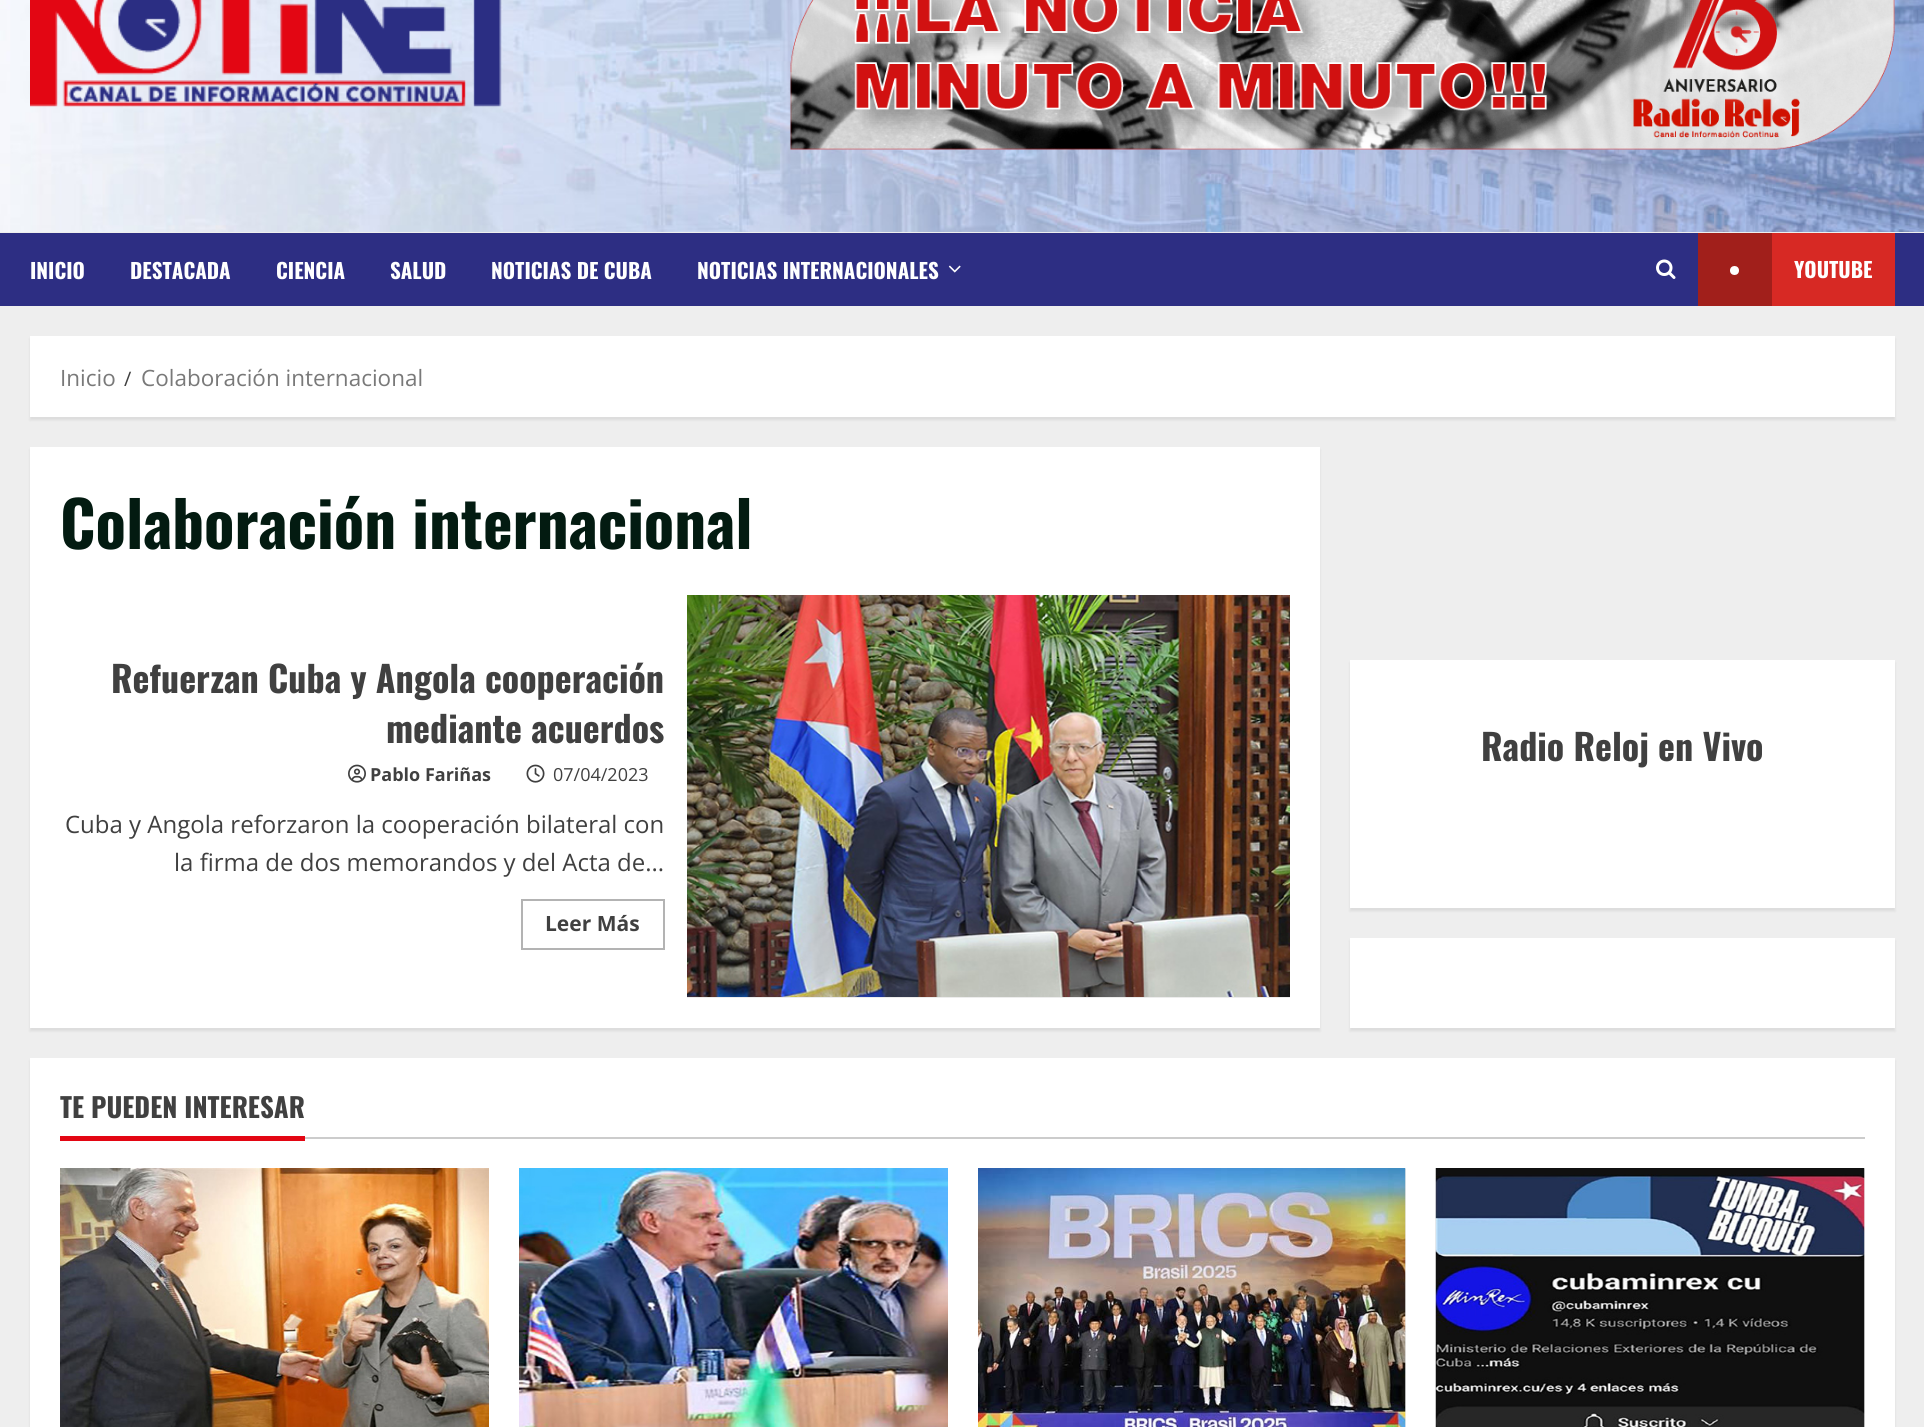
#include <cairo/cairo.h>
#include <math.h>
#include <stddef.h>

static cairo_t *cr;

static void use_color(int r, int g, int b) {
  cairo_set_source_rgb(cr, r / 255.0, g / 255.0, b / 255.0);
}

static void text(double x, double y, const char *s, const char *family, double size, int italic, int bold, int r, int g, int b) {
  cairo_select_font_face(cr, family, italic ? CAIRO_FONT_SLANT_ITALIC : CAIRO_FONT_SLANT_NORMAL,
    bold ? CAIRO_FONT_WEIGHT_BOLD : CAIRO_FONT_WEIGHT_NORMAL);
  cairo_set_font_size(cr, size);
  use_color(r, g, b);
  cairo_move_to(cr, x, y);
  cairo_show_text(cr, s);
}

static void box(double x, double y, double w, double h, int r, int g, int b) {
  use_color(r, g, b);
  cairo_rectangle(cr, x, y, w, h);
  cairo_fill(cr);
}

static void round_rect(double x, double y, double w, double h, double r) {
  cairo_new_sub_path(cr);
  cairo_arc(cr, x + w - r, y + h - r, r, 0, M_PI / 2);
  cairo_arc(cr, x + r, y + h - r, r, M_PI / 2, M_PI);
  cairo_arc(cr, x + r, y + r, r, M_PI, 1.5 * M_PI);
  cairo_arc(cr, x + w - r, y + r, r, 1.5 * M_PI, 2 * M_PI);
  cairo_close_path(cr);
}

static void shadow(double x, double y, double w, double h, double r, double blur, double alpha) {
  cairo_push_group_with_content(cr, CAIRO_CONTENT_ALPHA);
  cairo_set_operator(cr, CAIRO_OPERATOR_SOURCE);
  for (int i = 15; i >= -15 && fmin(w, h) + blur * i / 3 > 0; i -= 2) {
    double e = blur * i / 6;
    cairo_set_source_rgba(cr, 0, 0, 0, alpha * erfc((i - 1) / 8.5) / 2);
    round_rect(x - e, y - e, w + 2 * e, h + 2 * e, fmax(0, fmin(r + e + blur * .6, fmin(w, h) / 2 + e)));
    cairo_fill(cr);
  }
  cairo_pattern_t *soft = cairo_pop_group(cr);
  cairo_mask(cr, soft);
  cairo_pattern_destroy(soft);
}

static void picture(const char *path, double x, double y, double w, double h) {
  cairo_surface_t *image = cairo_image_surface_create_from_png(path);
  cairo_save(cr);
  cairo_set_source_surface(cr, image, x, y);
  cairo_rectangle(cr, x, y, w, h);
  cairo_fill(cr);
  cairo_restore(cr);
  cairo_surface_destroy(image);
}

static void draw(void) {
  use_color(238, 238, 238);
  cairo_paint(cr);
  picture("img_01.png", 0, 0, 1924, 232);
  picture("img_02.png", 30, 0, 472, 107);
  picture("img_03.png", 790, 0, 1105, 150);
  box(0, 233, 1924, 73, 45, 46, 131);
  picture("img_04.png", 948, 265, 13, 8);
  picture("img_05.png", 1656, 259, 20, 20);
  box(1772, 233, 123, 73, 215, 41, 36);
  box(1698, 233, 74, 73, 161, 31, 27);
  use_color(255, 255, 255);
  cairo_arc(cr, 1734.5, 270.5, 4.5, 0, 2 * M_PI);
  cairo_fill(cr);
  use_color(0, 0, 0);
  shadow(30, 339, 1865, 81, 0, 1.5, 0.08);
  box(30, 336, 1865, 81, 255, 255, 255);
  use_color(0, 0, 0);
  shadow(30, 450, 1290, 581, 0, 1.5, 0.08);
  box(30, 447, 1290, 581, 255, 255, 255);
  picture("img_06.png", 348, 764, 18, 19);
  picture("img_07.png", 526, 764, 19, 19);
  cairo_rectangle(cr, 522, 900, 142, 49);
  use_color(179, 179, 179);
  cairo_stroke(cr);
  box(687, 997, 603, 1, 236, 236, 236);
  picture("img_08.png", 687, 595, 603, 402);
  use_color(0, 0, 0);
  shadow(1350, 663, 545, 248, 0, 1.5, 0.08);
  box(1350, 660, 545, 248, 255, 255, 255);
  use_color(0, 0, 0);
  shadow(1350, 941, 545, 90, 0, 1.5, 0.08);
  box(1350, 938, 545, 90, 255, 255, 255);
  use_color(0, 0, 0);
  shadow(30, 1061, 1865, 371, 0, 1.5, 0.08);
  box(30, 1058, 1865, 369, 255, 255, 255);
  box(305, 1137, 1560, 2, 204, 204, 204);
  box(60, 1136, 245, 5, 227, 6, 19);
  picture("img_09.png", 60, 1168, 429, 259);
  picture("img_10.png", 519, 1168, 429, 259);
  box(1405, 1169, 1, 258, 236, 236, 236);
  picture("img_11.png", 978, 1168, 428, 259);
  box(1864, 1169, 1, 258, 236, 236, 236);
  picture("img_12.png", 1435, 1168, 430, 259);
  text(30, 279, "INICIO", "Oswald", 21, 0, 1, 255, 255, 255);
  text(130, 279, "DESTACADA", "Oswald", 21, 0, 1, 255, 255, 255);
  text(276, 279, "CIENCIA", "Oswald", 21, 0, 1, 255, 255, 255);
  text(390, 279, "SALUD", "Oswald", 21, 0, 1, 255, 255, 255);
  text(491, 279, "NOTICIAS DE CUBA", "Oswald", 21, 0, 1, 255, 255, 255);
  text(697, 279, "NOTICIAS INTERNACIONALES", "Oswald", 21, 0, 1, 255, 255, 255);
  text(1794, 278, "YOUTUBE", "Oswald", 21, 0, 1, 255, 255, 255);
  text(60, 386, "Inicio", "Open Sans", 22.5, 0, 0, 121, 121, 121);
  text(124, 386, "/", "Open Sans", 20, 0, 0, 64, 64, 64);
  text(141, 386, "Colaboración internacional", "Open Sans", 22.5, 0, 0, 121, 121, 121);
  text(60, 549, "Colaboración internacional", "Oswald", 63, 0, 1, 3, 27, 17);
  text(111, 693, "Refuerzan Cuba y Angola cooperación", "Oswald", 36, 0, 1, 64, 64, 64);
  text(386, 743, "mediante acuerdos", "Oswald", 36, 0, 1, 64, 64, 64);
  text(370, 781, "Pablo Fariñas", "Open Sans", 18, 0, 1, 64, 64, 64);
  text(553, 781, "07/04/2023", "Open Sans", 18, 0, 0, 64, 64, 64);
  text(65, 833, "Cuba y Angola reforzaron la cooperación bilateral con", "Open Sans", 24, 0, 0, 64, 64, 64);
  text(174, 871, "la firma de dos memorandos y del Acta de...", "Open Sans", 24, 0, 0, 64, 64, 64);
  text(545, 931, "Leer Más", "Open Sans", 21, 0, 1, 64, 64, 64);
  text(1481, 761, "Radio Reloj en Vivo", "Oswald", 36, 0, 1, 64, 64, 64);
  text(60, 1118, "TE PUEDEN INTERESAR", "Oswald", 27, 0, 1, 64, 64, 64);
}

int main(void) {
  cairo_surface_t *surface = cairo_image_surface_create(CAIRO_FORMAT_RGB24, 1924, 1427);
  cr = cairo_create(surface);
  cairo_font_options_t *options = cairo_font_options_create();
  cairo_font_options_set_hint_metrics(options, CAIRO_HINT_METRICS_OFF);
  cairo_font_options_set_hint_style(options, CAIRO_HINT_STYLE_NONE);
  cairo_set_font_options(cr, options);
  cairo_set_miter_limit(cr, 4);
  draw();
  cairo_surface_write_to_png(surface, "out.png");
  cairo_font_options_destroy(options);
  cairo_destroy(cr);
  cairo_surface_destroy(surface);
  return 0;
}
